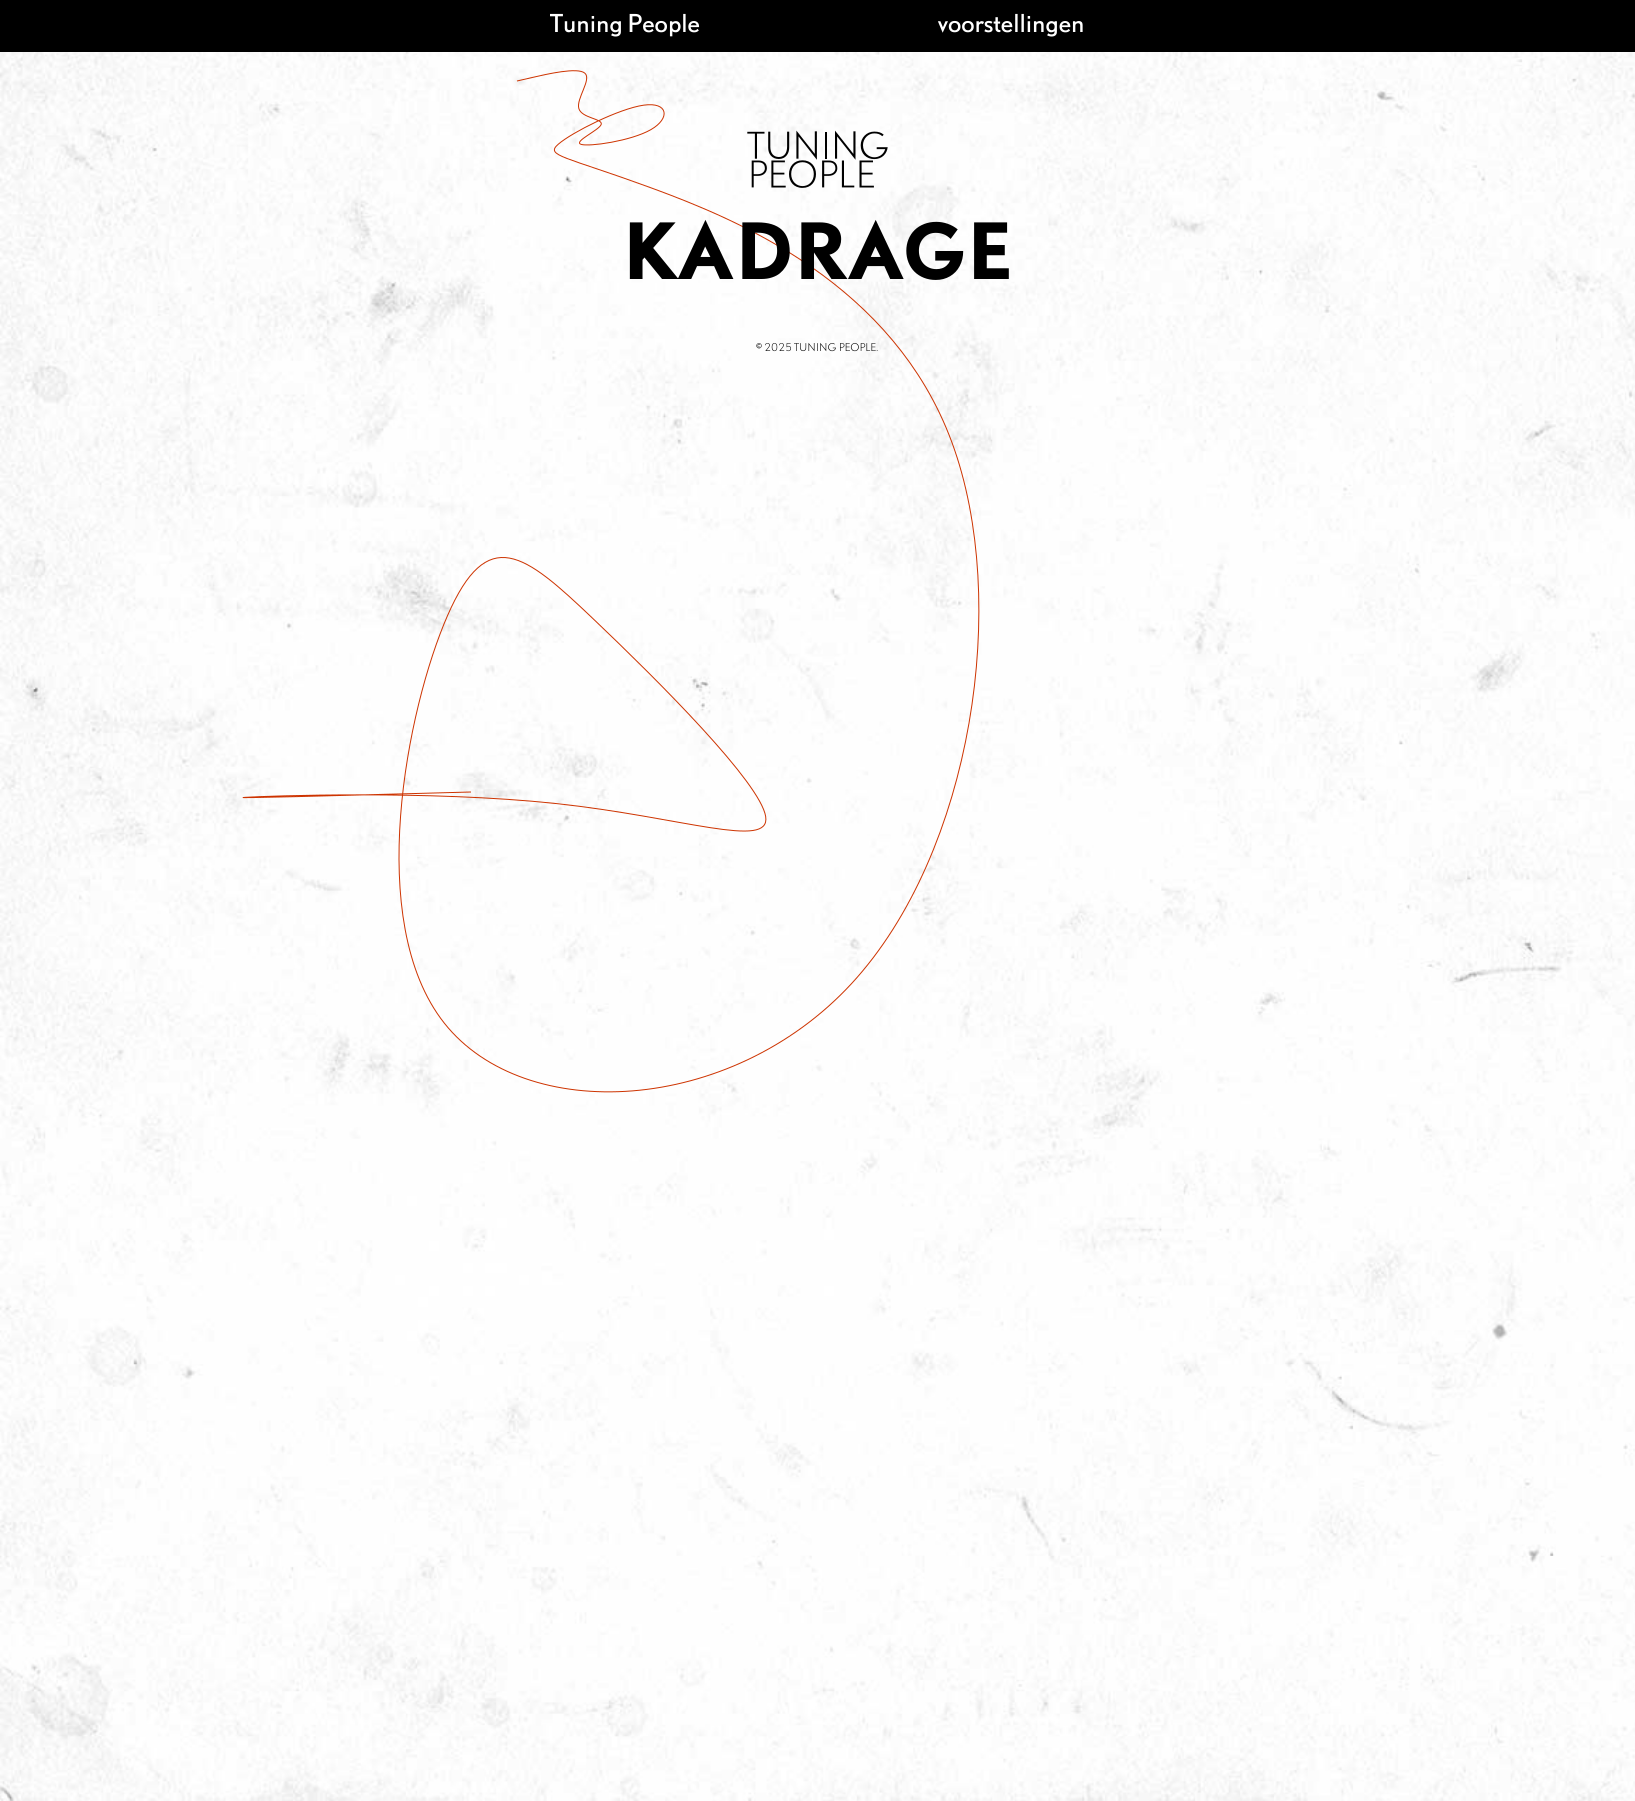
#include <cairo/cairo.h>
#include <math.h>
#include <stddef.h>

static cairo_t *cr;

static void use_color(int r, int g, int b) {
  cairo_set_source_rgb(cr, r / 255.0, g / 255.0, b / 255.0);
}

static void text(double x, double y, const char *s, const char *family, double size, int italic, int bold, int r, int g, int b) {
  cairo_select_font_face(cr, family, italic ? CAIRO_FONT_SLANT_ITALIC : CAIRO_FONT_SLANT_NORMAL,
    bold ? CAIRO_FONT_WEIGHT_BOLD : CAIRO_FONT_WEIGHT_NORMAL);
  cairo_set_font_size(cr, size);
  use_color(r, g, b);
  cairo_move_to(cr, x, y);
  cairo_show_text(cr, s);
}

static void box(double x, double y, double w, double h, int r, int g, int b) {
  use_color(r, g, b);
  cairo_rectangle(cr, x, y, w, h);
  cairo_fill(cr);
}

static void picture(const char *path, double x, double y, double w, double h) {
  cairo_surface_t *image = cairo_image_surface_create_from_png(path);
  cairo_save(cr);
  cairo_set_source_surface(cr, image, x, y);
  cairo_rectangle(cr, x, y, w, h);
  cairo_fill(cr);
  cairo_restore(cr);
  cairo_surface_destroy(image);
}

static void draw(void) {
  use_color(255, 255, 255);
  cairo_paint(cr);
  box(0, 0, 1635, 52, 0, 0, 0);
  picture("img_01.png", 0, 52, 1635, 1749);
  picture("img_02.png", 242, 70, 738, 1023);
  picture("img_03.png", 747, 130, 141, 58);
  text(550, 32, "Tuning People", "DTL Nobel", 23, 0, 0, 255, 255, 255);
  text(938, 32, "voorstellingen", "DTL Nobel", 23, 0, 0, 255, 255, 255);
  text(621, 279, "KADRAGE", "DTL Nobel", 72, 0, 1, 0, 0, 0);
  text(756, 351, "© 2025 TUNING PEOPLE.", "DTL Nobel Light", 10, 0, 0, 0, 0, 0);
}

int main(void) {
  cairo_surface_t *surface = cairo_image_surface_create(CAIRO_FORMAT_RGB24, 1635, 1801);
  cr = cairo_create(surface);
  cairo_font_options_t *options = cairo_font_options_create();
  cairo_font_options_set_hint_metrics(options, CAIRO_HINT_METRICS_OFF);
  cairo_font_options_set_hint_style(options, CAIRO_HINT_STYLE_NONE);
  cairo_set_font_options(cr, options);
  cairo_set_miter_limit(cr, 4);
  draw();
  cairo_surface_write_to_png(surface, "out.png");
  cairo_font_options_destroy(options);
  cairo_destroy(cr);
  cairo_surface_destroy(surface);
  return 0;
}
